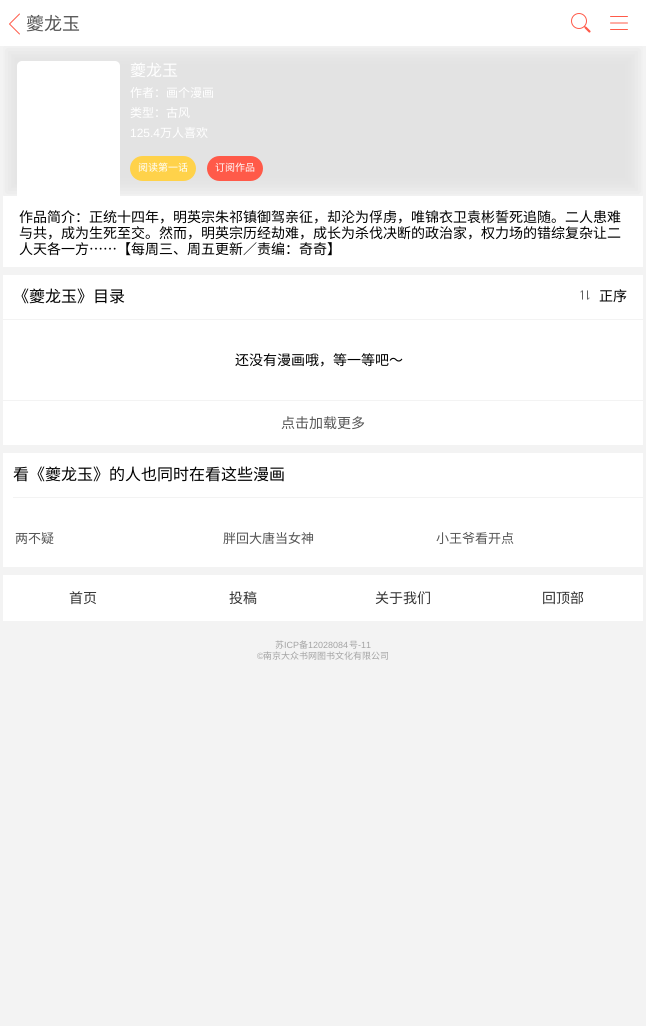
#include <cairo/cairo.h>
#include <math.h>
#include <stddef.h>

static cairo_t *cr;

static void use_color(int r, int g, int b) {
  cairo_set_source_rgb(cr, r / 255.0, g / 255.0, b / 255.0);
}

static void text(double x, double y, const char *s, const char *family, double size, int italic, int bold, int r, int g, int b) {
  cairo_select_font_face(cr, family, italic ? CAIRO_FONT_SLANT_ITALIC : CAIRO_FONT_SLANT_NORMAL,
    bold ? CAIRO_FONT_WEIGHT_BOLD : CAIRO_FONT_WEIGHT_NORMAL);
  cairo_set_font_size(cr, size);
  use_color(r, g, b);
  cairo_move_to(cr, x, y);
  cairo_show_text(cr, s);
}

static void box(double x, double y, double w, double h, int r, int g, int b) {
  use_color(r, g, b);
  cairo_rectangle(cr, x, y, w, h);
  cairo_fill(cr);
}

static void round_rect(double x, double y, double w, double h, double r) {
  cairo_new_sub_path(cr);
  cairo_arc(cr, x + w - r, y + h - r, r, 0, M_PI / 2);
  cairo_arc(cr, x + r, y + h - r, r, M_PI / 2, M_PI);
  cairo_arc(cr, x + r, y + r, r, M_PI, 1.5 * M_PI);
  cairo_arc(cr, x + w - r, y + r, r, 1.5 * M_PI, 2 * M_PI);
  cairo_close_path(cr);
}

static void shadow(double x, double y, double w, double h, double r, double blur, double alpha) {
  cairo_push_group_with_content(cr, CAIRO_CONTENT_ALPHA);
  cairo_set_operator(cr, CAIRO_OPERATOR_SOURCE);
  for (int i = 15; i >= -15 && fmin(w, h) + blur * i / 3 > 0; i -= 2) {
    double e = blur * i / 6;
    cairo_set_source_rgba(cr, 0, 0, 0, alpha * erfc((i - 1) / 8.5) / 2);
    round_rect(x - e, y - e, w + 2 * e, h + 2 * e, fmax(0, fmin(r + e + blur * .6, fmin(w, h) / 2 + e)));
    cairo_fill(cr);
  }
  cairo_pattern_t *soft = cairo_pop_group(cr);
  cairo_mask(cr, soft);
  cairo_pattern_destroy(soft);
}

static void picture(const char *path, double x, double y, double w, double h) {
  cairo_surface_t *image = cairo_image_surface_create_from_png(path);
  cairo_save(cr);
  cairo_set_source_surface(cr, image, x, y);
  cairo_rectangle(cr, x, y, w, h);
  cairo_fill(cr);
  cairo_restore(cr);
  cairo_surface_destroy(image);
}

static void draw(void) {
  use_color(243, 243, 243);
  cairo_paint(cr);
  box(3, 46, 640, 221, 255, 255, 255);
  cairo_save(cr);
  cairo_rectangle(cr, 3, 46, 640, 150);
  cairo_clip(cr);
  use_color(160, 160, 160);
  shadow(3, 46, 640, 150, 0, 10, 0.3);
  cairo_restore(cr);
  box(0, 0, 646, 46, 255, 255, 255);
  picture("img_01.png", 9, 13, 11, 22);
  picture("img_02.png", 571, 13, 20, 20);
  picture("img_03.png", 610, 16, 18, 14);
  round_rect(17, 61, 103, 145, 5);
  cairo_fill(cr);
  use_color(255, 210, 74);
  round_rect(130, 156, 66, 25, 12.5);
  cairo_fill(cr);
  use_color(255, 90, 73);
  round_rect(207, 156, 56, 25, 12.5);
  cairo_fill(cr);
  box(3, 275, 640, 170, 255, 255, 255);
  picture("img_04.png", 580, 290, 10, 10);
  box(3, 319, 640, 1, 243, 243, 243);
  box(3, 400, 640, 1, 243, 243, 243);
  box(3, 453, 640, 114, 255, 255, 255);
  box(13, 497, 630, 1, 243, 243, 243);
  box(3, 575, 640, 46, 255, 255, 255);
  text(26, 30, "夔龙玉", "Noto Sans CJK SC", 18, 0, 0, 85, 85, 85);
  text(130, 76, "夔龙玉", "Noto Sans CJK SC", 16, 0, 0, 255, 255, 255);
  text(130, 97, "作者：画个漫画", "Noto Sans CJK SC", 12, 0, 0, 255, 255, 255);
  text(130, 117, "类型：古风", "Noto Sans CJK SC", 12, 0, 0, 255, 255, 255);
  text(130, 137, "125.4", "Liberation Sans", 12, 0, 0, 255, 255, 255);
  text(160, 137, "万人喜欢", "Noto Sans CJK SC", 12, 0, 0, 255, 255, 255);
  text(138, 171, "阅读第一话", "Noto Sans CJK SC", 10, 0, 0, 255, 255, 255);
  text(215, 171, "订阅作品", "Noto Sans CJK SC", 10, 0, 0, 255, 255, 255);
  text(19, 222, "作品简介：正统十四年，明英宗朱祁镇御驾亲征，却沦为俘虏，唯锦衣卫袁彬誓死追随。二人患难", "Noto Sans CJK SC", 14, 0, 0, 0, 0, 0);
  text(19, 238, "与共，成为生死至交。然而，明英宗历经劫难，成长为杀伐决断的政治家，权力场的错综复杂让二", "Noto Sans CJK SC", 14, 0, 0, 0, 0, 0);
  text(19, 254, "人天各一方⋯⋯【每周三、周五更新／责编：奇奇】", "Noto Sans CJK SC", 14, 0, 0, 0, 0, 0);
  text(13, 302, "《夔龙玉》目录", "Noto Sans CJK SC", 16, 0, 0, 0, 0, 0);
  text(599, 301, "正序", "Noto Sans CJK SC", 14, 0, 0, 0, 0, 0);
  text(235, 365, "还没有漫画哦，等一等吧～", "Noto Sans CJK SC", 14, 0, 0, 0, 0, 0);
  text(281, 428, "点击加载更多", "Noto Sans CJK SC", 14, 0, 0, 85, 85, 85);
  text(13, 480, "看《夔龙玉》的人也同时在看这些漫画", "Noto Sans CJK SC", 16, 0, 0, 0, 0, 0);
  text(15, 543, "两不疑", "Noto Sans CJK SC", 13, 0, 0, 85, 85, 85);
  text(223, 543, "胖回大唐当女神", "Noto Sans CJK SC", 13, 0, 0, 85, 85, 85);
  text(436, 543, "小王爷看开点", "Noto Sans CJK SC", 13, 0, 0, 85, 85, 85);
  text(69, 603, "首页", "Noto Sans CJK SC", 14, 0, 0, 51, 51, 51);
  text(229, 603, "投稿", "Noto Sans CJK SC", 14, 0, 0, 51, 51, 51);
  text(375, 603, "关于我们", "Noto Sans CJK SC", 14, 0, 0, 51, 51, 51);
  text(542, 603, "回顶部", "Noto Sans CJK SC", 14, 0, 0, 51, 51, 51);
  text(275, 648, "苏", "Noto Sans CJK SC", 9, 0, 0, 163, 163, 163);
  text(284, 648, "ICP", "Liberation Sans", 9, 0, 0, 163, 163, 163);
  text(299, 648, "备", "Noto Sans CJK SC", 9, 0, 0, 163, 163, 163);
  text(308, 648, "12028084", "Liberation Sans", 9, 0, 0, 163, 163, 163);
  text(349, 648, "号", "Noto Sans CJK SC", 9, 0, 0, 163, 163, 163);
  text(358, 648, "-11", "Liberation Sans", 9, 0, 0, 163, 163, 163);
  text(257, 659, "©", "Liberation Sans", 9, 0, 0, 163, 163, 163);
  text(263, 659, "南京大众书网图书文化有限公司", "Noto Sans CJK SC", 9, 0, 0, 163, 163, 163);
}

int main(void) {
  cairo_surface_t *surface = cairo_image_surface_create(CAIRO_FORMAT_RGB24, 646, 1026);
  cr = cairo_create(surface);
  cairo_font_options_t *options = cairo_font_options_create();
  cairo_font_options_set_hint_metrics(options, CAIRO_HINT_METRICS_OFF);
  cairo_font_options_set_hint_style(options, CAIRO_HINT_STYLE_NONE);
  cairo_set_font_options(cr, options);
  cairo_set_miter_limit(cr, 4);
  draw();
  cairo_surface_write_to_png(surface, "out.png");
  cairo_font_options_destroy(options);
  cairo_destroy(cr);
  cairo_surface_destroy(surface);
  return 0;
}
